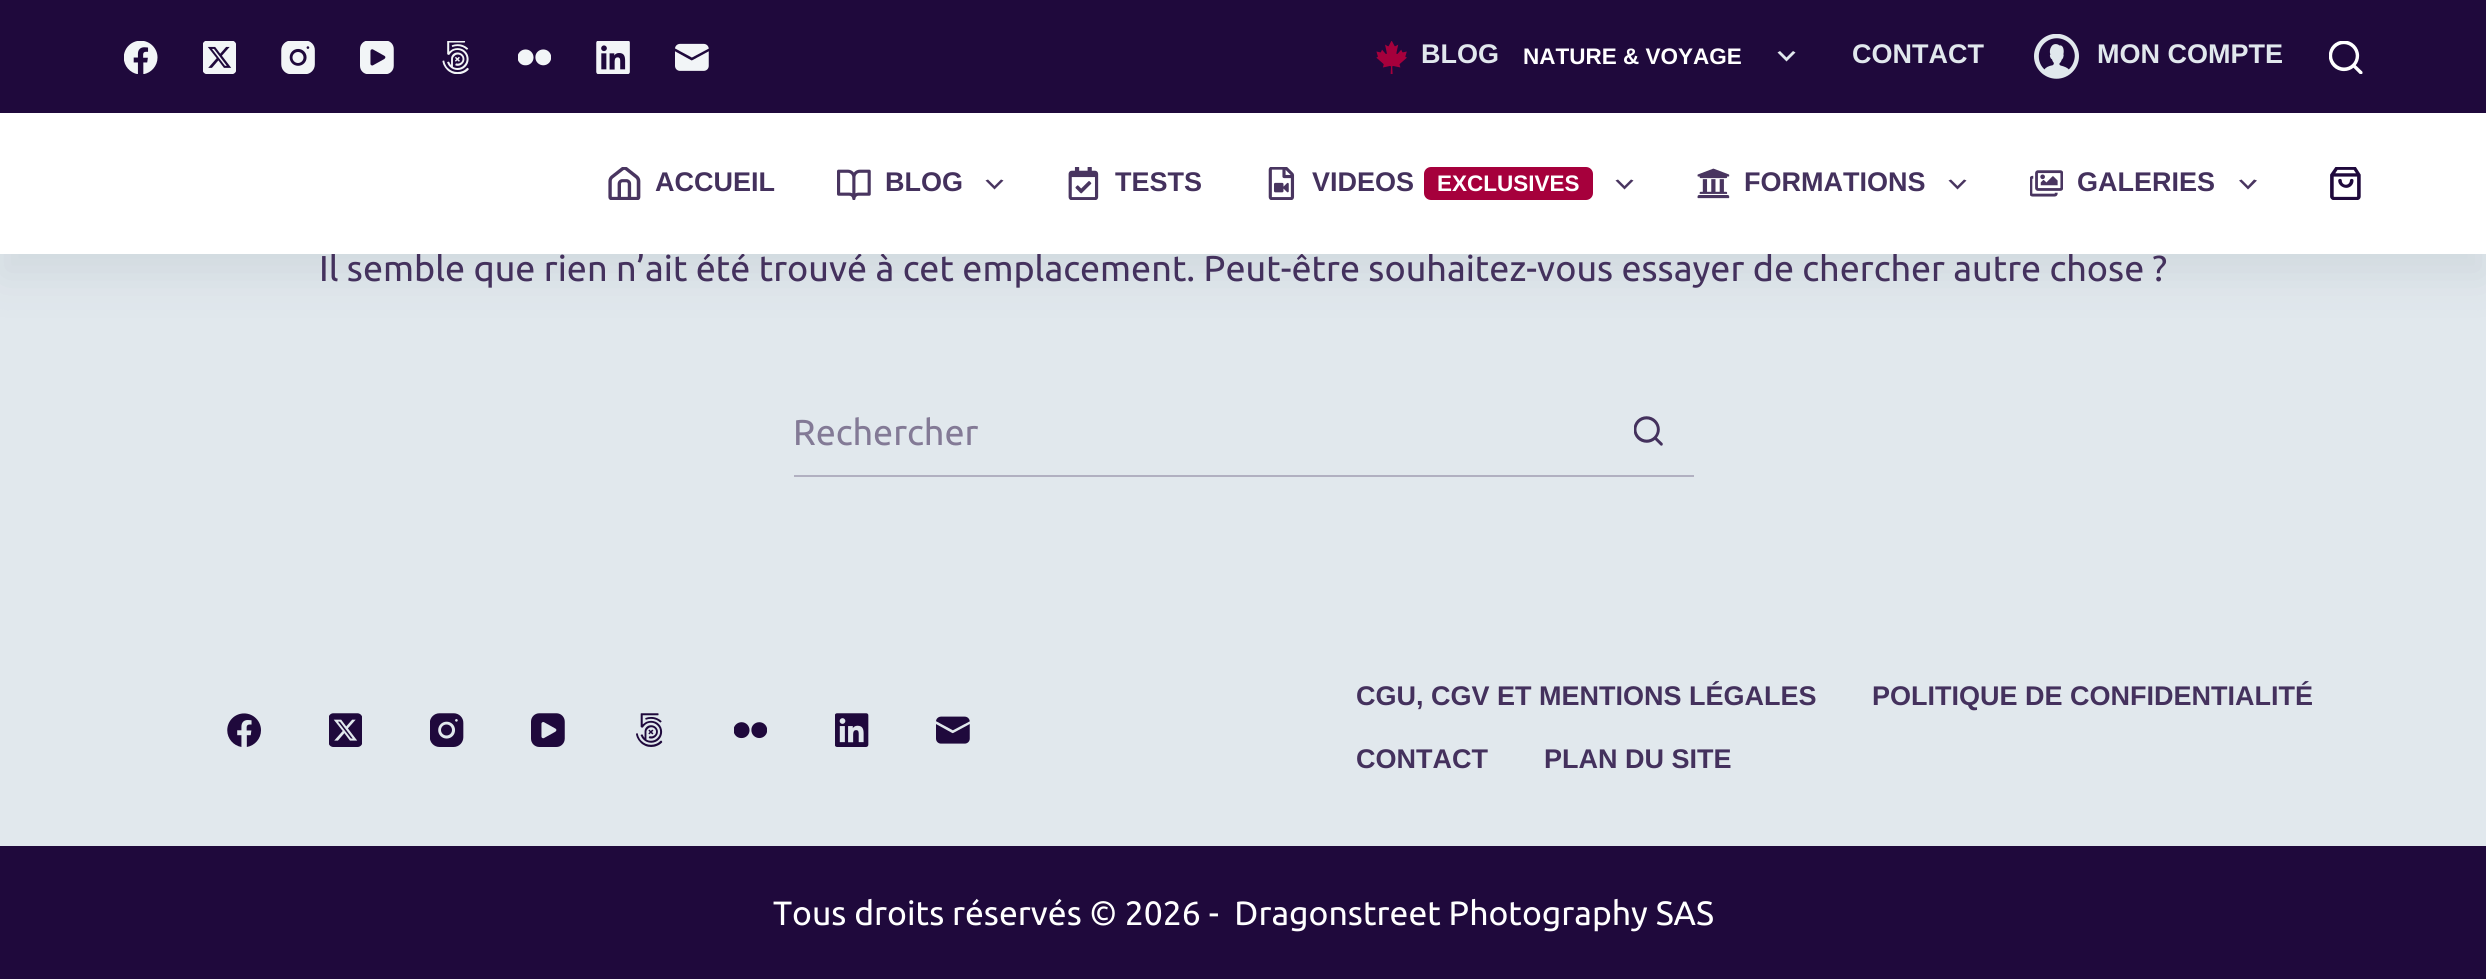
#include <cairo/cairo.h>
#include <math.h>
#include <stddef.h>

static cairo_t *cr;

static void use_color(int r, int g, int b) {
  cairo_set_source_rgb(cr, r / 255.0, g / 255.0, b / 255.0);
}

static void text(double x, double y, const char *s, const char *family, double size, int italic, int bold, int r, int g, int b) {
  cairo_select_font_face(cr, family, italic ? CAIRO_FONT_SLANT_ITALIC : CAIRO_FONT_SLANT_NORMAL,
    bold ? CAIRO_FONT_WEIGHT_BOLD : CAIRO_FONT_WEIGHT_NORMAL);
  cairo_set_font_size(cr, size);
  use_color(r, g, b);
  cairo_move_to(cr, x, y);
  cairo_show_text(cr, s);
}

static void box(double x, double y, double w, double h, int r, int g, int b) {
  use_color(r, g, b);
  cairo_rectangle(cr, x, y, w, h);
  cairo_fill(cr);
}

static void round_rect(double x, double y, double w, double h, double r) {
  cairo_new_sub_path(cr);
  cairo_arc(cr, x + w - r, y + h - r, r, 0, M_PI / 2);
  cairo_arc(cr, x + r, y + h - r, r, M_PI / 2, M_PI);
  cairo_arc(cr, x + r, y + r, r, M_PI, 1.5 * M_PI);
  cairo_arc(cr, x + w - r, y + r, r, 1.5 * M_PI, 2 * M_PI);
  cairo_close_path(cr);
}

static void shadow(double x, double y, double w, double h, double r, double blur, double alpha) {
  cairo_push_group_with_content(cr, CAIRO_CONTENT_ALPHA);
  cairo_set_operator(cr, CAIRO_OPERATOR_SOURCE);
  for (int i = 15; i >= -15 && fmin(w, h) + blur * i / 3 > 0; i -= 2) {
    double e = blur * i / 6;
    cairo_set_source_rgba(cr, 0, 0, 0, alpha * erfc((i - 1) / 8.5) / 2);
    round_rect(x - e, y - e, w + 2 * e, h + 2 * e, fmax(0, fmin(r + e + blur * .6, fmin(w, h) / 2 + e)));
    cairo_fill(cr);
  }
  cairo_pattern_t *soft = cairo_pop_group(cr);
  cairo_mask(cr, soft);
  cairo_pattern_destroy(soft);
}

static void picture(const char *path, double x, double y, double w, double h) {
  cairo_surface_t *image = cairo_image_surface_create_from_png(path);
  cairo_save(cr);
  cairo_set_source_surface(cr, image, x, y);
  cairo_rectangle(cr, x, y, w, h);
  cairo_fill(cr);
  cairo_restore(cr);
  cairo_surface_destroy(image);
}

static void draw(void) {
  use_color(225, 232, 237);
  cairo_paint(cr);
  use_color(43, 61, 79);
  shadow(0, 135, 2486, 142, 0, 22.5, 0.09);
  box(0, 0, 2486, 113, 31, 9, 60);
  picture("img_01.png", 124, 41, 34, 33);
  picture("img_02.png", 203, 41, 33, 33);
  picture("img_03.png", 281, 41, 34, 33);
  picture("img_04.png", 360, 41, 34, 33);
  picture("img_05.png", 442, 41, 27, 33);
  picture("img_06.png", 518, 49, 33, 17);
  picture("img_07.png", 596, 41, 34, 33);
  picture("img_08.png", 675, 43, 34, 28);
  picture("img_09.png", 1376, 41, 31, 33);
  use_color(225, 232, 237);
  cairo_new_path(cr);
  cairo_move_to(cr, 1780, 51);
  cairo_line_to(cr, 1786.5, 57.5);
  cairo_line_to(cr, 1793, 51);
  cairo_line_to(cr, 1795.5, 52.5);
  cairo_line_to(cr, 1786.5, 61.5);
  cairo_line_to(cr, 1777.5, 52.5);
  cairo_close_path(cr);
  cairo_fill(cr);
  picture("img_10.png", 2034, 34, 45, 45);
  picture("img_11.png", 2329, 41, 34, 33);
  box(794, 475, 900, 2, 177, 176, 193);
  picture("img_19.png", 1634, 416, 29, 30);
  picture("img_20.png", 227, 713, 34, 34);
  picture("img_21.png", 329, 713, 33, 34);
  picture("img_22.png", 430, 713, 34, 34);
  picture("img_23.png", 531, 713, 34, 34);
  picture("img_24.png", 636, 713, 27, 34);
  picture("img_25.png", 734, 722, 33, 17);
  picture("img_26.png", 835, 713, 34, 34);
  picture("img_27.png", 936, 716, 34, 28);
  box(0, 846, 2486, 133, 31, 9, 60);
  text(1421, 63, "BLOG", "Liberation Sans", 27, 0, 1, 225, 232, 237);
  text(1523, 64, "NATURE & VOYAGE", "Liberation Sans", 22.5, 0, 1, 255, 255, 255);
  text(1852, 63, "CONTACT", "Liberation Sans", 27, 0, 1, 225, 232, 237);
  text(2097, 63, "MON COMPTE", "Liberation Sans", 27, 0, 1, 225, 232, 237);
  text(319, 281, "Il semble que rien n’ait été trouvé à cet emplacement. Peut-être souhaitez-vous essayer de chercher autre chose ?", "Ubuntu", 36, 0, 0, 68, 49, 93);
  box(0, 113, 2486, 141, 255, 255, 255);
  picture("img_18.png", 2330, 167, 31, 33);
  use_color(73, 53, 96);
  cairo_new_path(cr);
  cairo_move_to(cr, 2241.5, 179.5);
  cairo_line_to(cr, 2248, 186);
  cairo_line_to(cr, 2254, 179.5);
  cairo_line_to(cr, 2257, 180.5);
  cairo_line_to(cr, 2248, 189.5);
  cairo_line_to(cr, 2239, 180.5);
  cairo_close_path(cr);
  cairo_fill(cr);
  picture("img_17.png", 2030, 170, 33, 27);
  text(2077, 191, "GALERIES", "Liberation Sans", 27, 0, 1, 68, 49, 93);
  use_color(73, 53, 96);
  cairo_new_path(cr);
  cairo_move_to(cr, 1951, 179.5);
  cairo_line_to(cr, 1957.5, 186);
  cairo_line_to(cr, 1964, 179.5);
  cairo_line_to(cr, 1966.5, 180.5);
  cairo_line_to(cr, 1957.5, 189.5);
  cairo_line_to(cr, 1948.5, 180.5);
  cairo_close_path(cr);
  cairo_fill(cr);
  picture("img_16.png", 1697, 168, 33, 31);
  text(1744, 191, "FORMATIONS", "Liberation Sans", 27, 0, 1, 68, 49, 93);
  use_color(73, 53, 96);
  cairo_new_path(cr);
  cairo_move_to(cr, 1618, 179.5);
  cairo_line_to(cr, 1624.5, 186);
  cairo_line_to(cr, 1631, 179.5);
  cairo_line_to(cr, 1633.5, 180.5);
  cairo_line_to(cr, 1624.5, 189.5);
  cairo_line_to(cr, 1615.5, 180.5);
  cairo_close_path(cr);
  cairo_fill(cr);
  picture("img_15.png", 1268, 167, 27, 33);
  use_color(166, 0, 60);
  round_rect(1424, 167, 169, 33, 7);
  cairo_fill(cr);
  text(1437, 191, "EXCLUSIVES", "Liberation Sans", 22.5, 0, 1, 255, 255, 255);
  text(1312, 191, "VIDEOS", "Liberation Sans", 27, 0, 1, 68, 49, 93);
  picture("img_14.png", 1068, 167, 31, 33);
  text(1115, 191, "TESTS", "Liberation Sans", 27, 0, 1, 68, 49, 93);
  use_color(73, 53, 96);
  cairo_new_path(cr);
  cairo_move_to(cr, 988, 179.5);
  cairo_line_to(cr, 994.5, 186);
  cairo_line_to(cr, 1001, 179.5);
  cairo_line_to(cr, 1003.5, 180.5);
  cairo_line_to(cr, 994.5, 189.5);
  cairo_line_to(cr, 985.5, 180.5);
  cairo_close_path(cr);
  cairo_fill(cr);
  picture("img_13.png", 837, 169, 34, 31);
  text(885, 191, "BLOG", "Liberation Sans", 27, 0, 1, 68, 49, 93);
  picture("img_12.png", 608, 167, 33, 33);
  text(655, 191, "ACCUEIL", "Liberation Sans", 27, 0, 1, 68, 49, 93);
  text(793, 445, "Rechercher", "Ubuntu", 36, 0, 0, 131, 122, 150);
  text(1356, 705, "CGU, CGV ET MENTIONS LÉGALES", "Liberation Sans", 27, 0, 1, 68, 49, 93);
  text(1872, 705, "POLITIQUE DE CONFIDENTIALITÉ", "Liberation Sans", 27, 0, 1, 68, 49, 93);
  text(1356, 768, "CONTACT", "Liberation Sans", 27, 0, 1, 68, 49, 93);
  text(1544, 768, "PLAN DU SITE", "Liberation Sans", 27, 0, 1, 68, 49, 93);
  text(773, 925, "Tous droits réservés © 2026 -  Dragonstreet Photography SAS", "Ubuntu", 33.75, 0, 0, 255, 255, 255);
}

int main(void) {
  cairo_surface_t *surface = cairo_image_surface_create(CAIRO_FORMAT_RGB24, 2486, 979);
  cr = cairo_create(surface);
  cairo_font_options_t *options = cairo_font_options_create();
  cairo_font_options_set_hint_metrics(options, CAIRO_HINT_METRICS_OFF);
  cairo_font_options_set_hint_style(options, CAIRO_HINT_STYLE_NONE);
  cairo_set_font_options(cr, options);
  cairo_set_miter_limit(cr, 4);
  draw();
  cairo_surface_write_to_png(surface, "out.png");
  cairo_font_options_destroy(options);
  cairo_destroy(cr);
  cairo_surface_destroy(surface);
  return 0;
}
